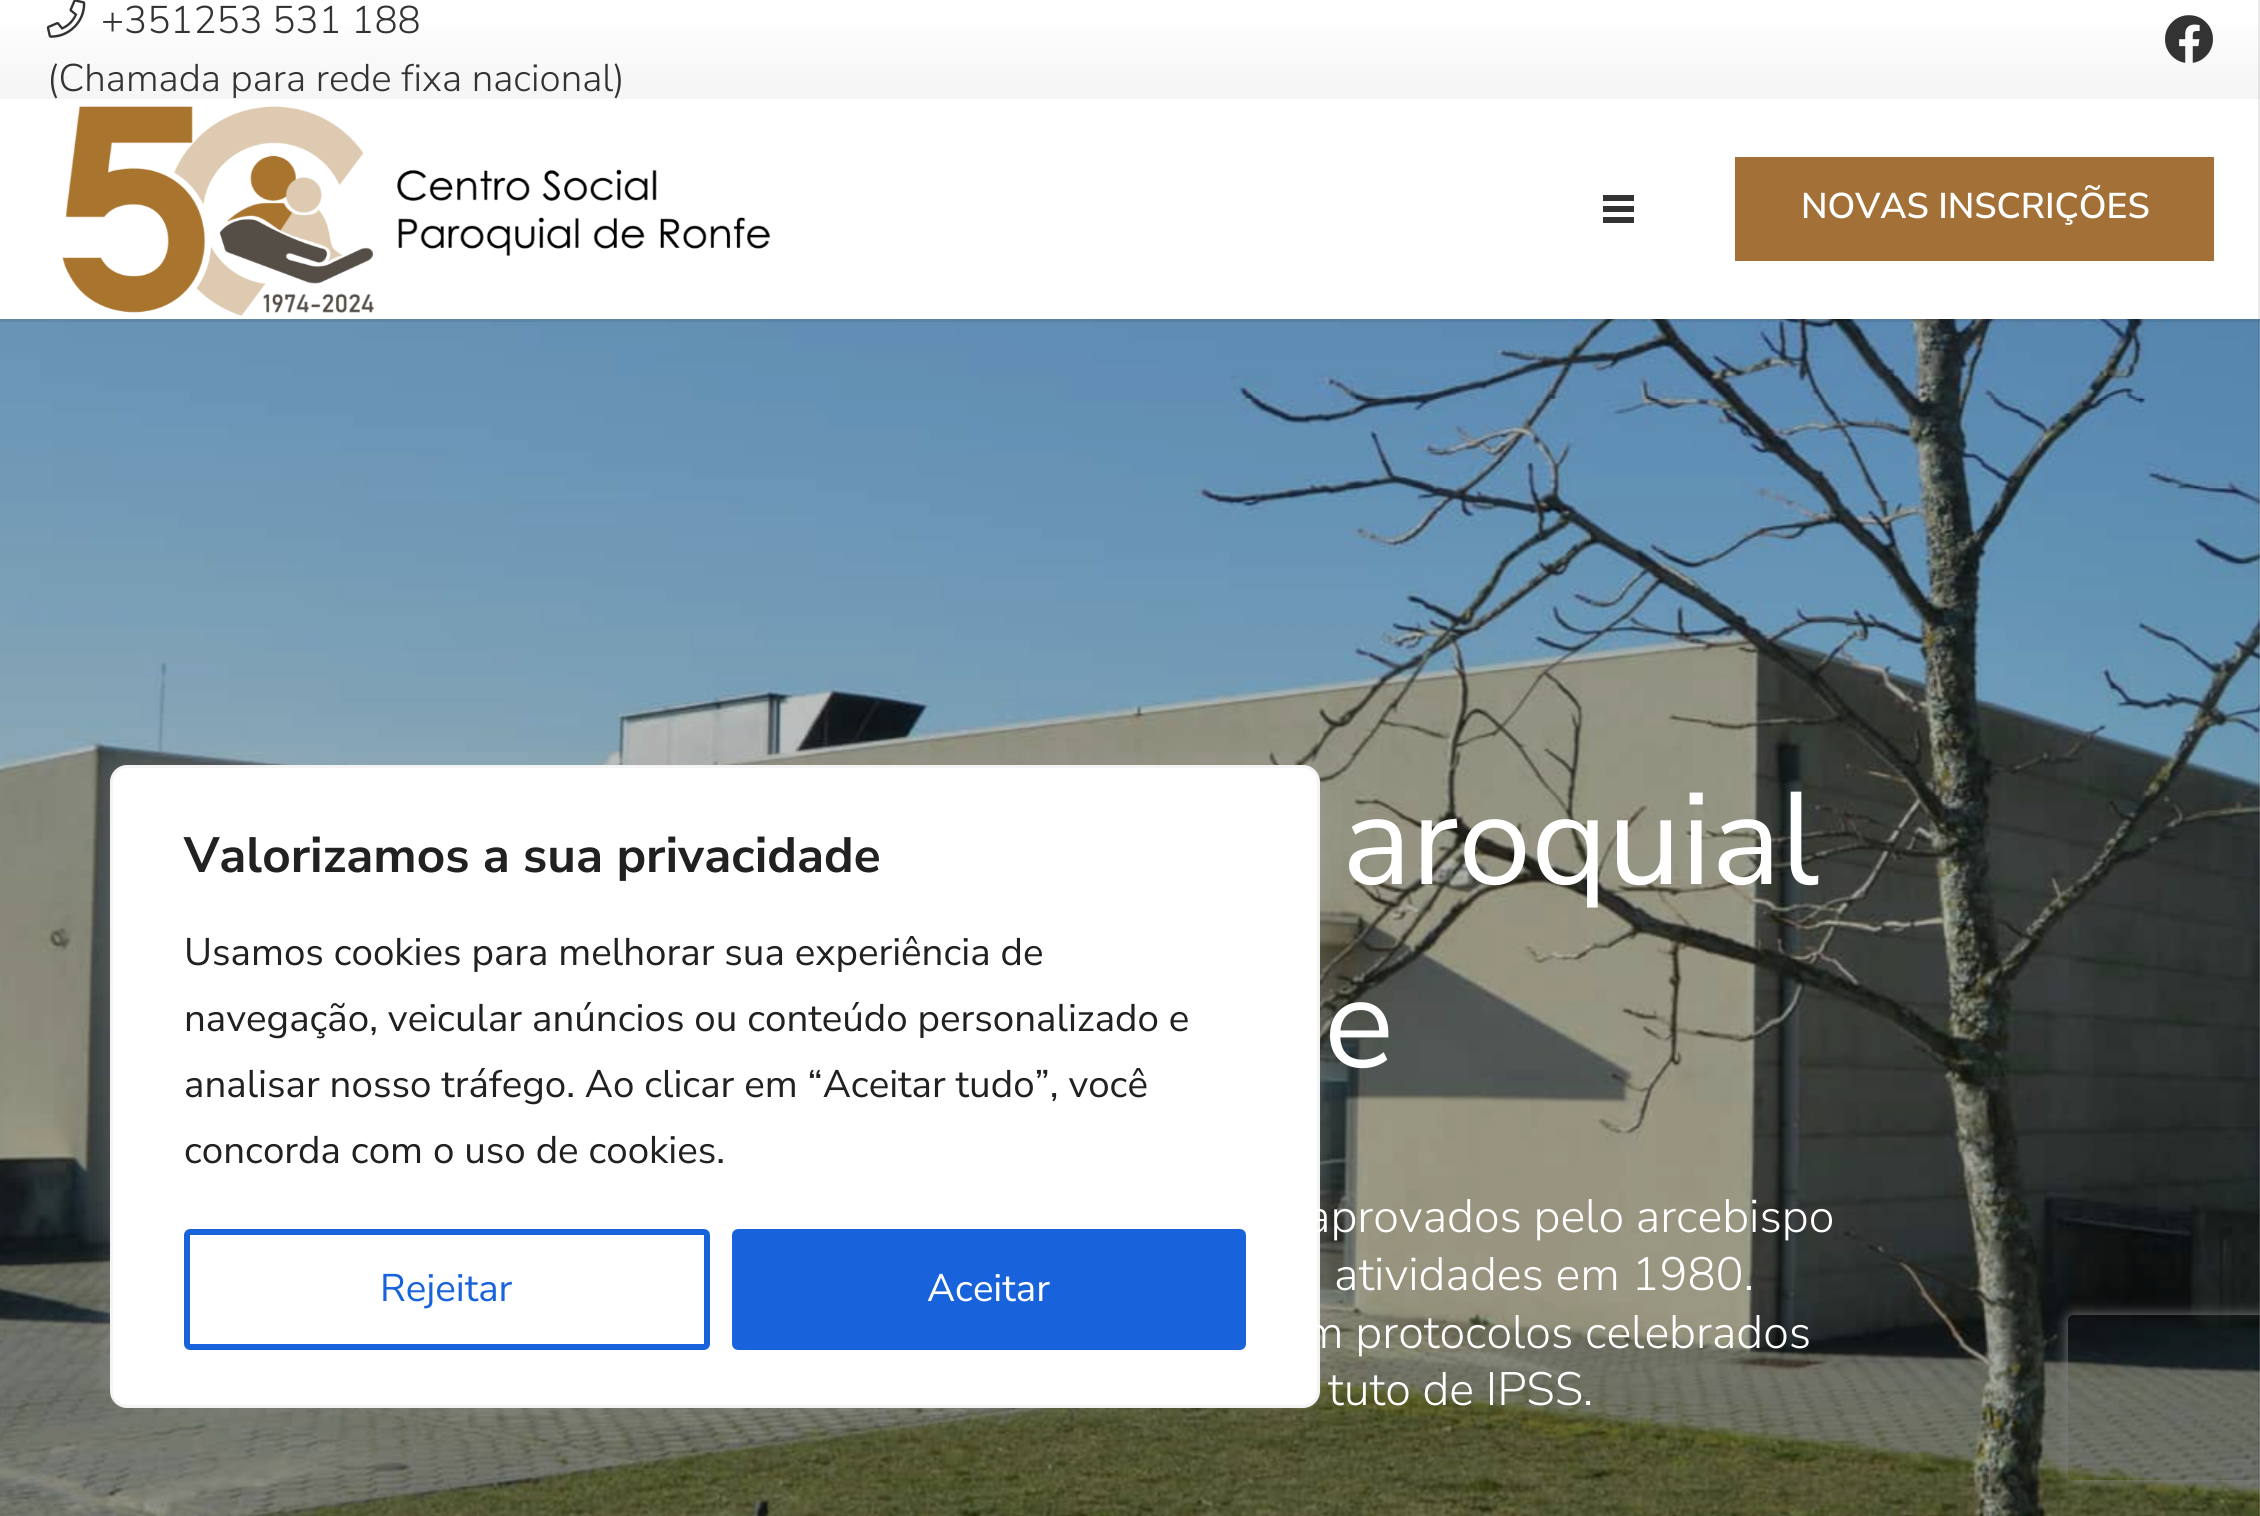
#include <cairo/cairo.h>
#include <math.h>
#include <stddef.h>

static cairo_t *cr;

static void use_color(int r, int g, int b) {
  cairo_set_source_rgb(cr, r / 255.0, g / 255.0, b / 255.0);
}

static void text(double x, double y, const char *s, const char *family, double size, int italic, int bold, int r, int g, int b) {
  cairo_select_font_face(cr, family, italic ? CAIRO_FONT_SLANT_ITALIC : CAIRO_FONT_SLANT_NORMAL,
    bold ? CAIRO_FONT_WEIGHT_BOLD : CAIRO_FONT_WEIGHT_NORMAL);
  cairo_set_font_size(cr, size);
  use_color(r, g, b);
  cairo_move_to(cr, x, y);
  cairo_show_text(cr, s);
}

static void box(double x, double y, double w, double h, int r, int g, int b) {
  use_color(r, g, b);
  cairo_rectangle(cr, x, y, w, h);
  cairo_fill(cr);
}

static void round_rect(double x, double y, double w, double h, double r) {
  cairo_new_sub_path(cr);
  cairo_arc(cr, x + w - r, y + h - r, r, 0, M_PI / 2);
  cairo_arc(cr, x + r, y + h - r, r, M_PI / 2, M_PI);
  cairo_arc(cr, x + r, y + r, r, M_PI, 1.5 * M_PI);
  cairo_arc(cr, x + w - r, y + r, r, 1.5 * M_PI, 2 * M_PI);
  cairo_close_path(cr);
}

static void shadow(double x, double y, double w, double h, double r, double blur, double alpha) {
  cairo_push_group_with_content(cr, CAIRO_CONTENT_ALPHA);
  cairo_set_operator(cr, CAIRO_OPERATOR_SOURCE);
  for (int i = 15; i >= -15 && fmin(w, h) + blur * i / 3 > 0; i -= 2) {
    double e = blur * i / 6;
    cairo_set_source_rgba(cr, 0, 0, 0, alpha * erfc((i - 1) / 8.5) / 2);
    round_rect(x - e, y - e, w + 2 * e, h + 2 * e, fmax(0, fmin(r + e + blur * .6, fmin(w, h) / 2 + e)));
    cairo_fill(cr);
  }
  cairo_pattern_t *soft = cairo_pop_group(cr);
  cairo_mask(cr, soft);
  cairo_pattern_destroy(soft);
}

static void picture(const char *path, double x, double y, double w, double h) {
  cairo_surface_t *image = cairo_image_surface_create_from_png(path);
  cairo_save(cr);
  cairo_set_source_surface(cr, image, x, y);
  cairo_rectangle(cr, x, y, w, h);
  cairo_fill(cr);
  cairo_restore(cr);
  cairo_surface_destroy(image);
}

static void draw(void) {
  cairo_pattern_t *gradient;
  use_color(255, 255, 255);
  cairo_paint(cr);
  gradient = cairo_pattern_create_linear(1130, 99, 1130, 0);
  cairo_pattern_add_color_stop_rgba(gradient, 0, 0.961, 0.961, 0.961, 1);
  cairo_pattern_add_color_stop_rgba(gradient, 1, 1, 1, 1, 1);
  cairo_set_source(cr, gradient);
  cairo_pattern_destroy(gradient);
  cairo_rectangle(cr, 0, 25, 2260, 74);
  cairo_fill(cr);
  picture("img_01.png", 46, 0, 40, 38);
  picture("img_02.png", 2165, 15, 48, 48);
  picture("img_04.png", 0, 319, 2260, 1197);
  cairo_set_source_rgba(cr, 0, 0, 0, 0.08);
  cairo_new_path(cr);
  cairo_move_to(cr, 0, 319);
  cairo_line_to(cr, 0, 322);
  cairo_line_to(cr, 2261, 322);
  cairo_line_to(cr, 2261, 102);
  cairo_line_to(cr, 2260, 102);
  cairo_line_to(cr, 2260, 319);
  cairo_close_path(cr);
  cairo_fill(cr);
  picture("img_03.png", 62, 106, 708, 210);
  box(1603, 206, 31, 6, 51, 51, 51);
  box(1603, 195, 31, 6, 51, 51, 51);
  box(1603, 217, 31, 6, 51, 51, 51);
  cairo_save(cr);
  cairo_set_fill_rule(cr, CAIRO_FILL_RULE_EVEN_ODD);
  cairo_new_path(cr);
  cairo_move_to(cr, 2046, 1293);
  cairo_line_to(cr, 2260, 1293);
  cairo_line_to(cr, 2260, 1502);
  cairo_line_to(cr, 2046, 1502);
  cairo_close_path(cr);
  cairo_move_to(cr, 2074, 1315);
  cairo_line_to(cr, 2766, 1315);
  cairo_curve_to(cr, 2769.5, 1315, 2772, 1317.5, 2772, 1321);
  cairo_line_to(cr, 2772, 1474);
  cairo_curve_to(cr, 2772, 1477.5, 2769.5, 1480, 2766, 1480);
  cairo_line_to(cr, 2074, 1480);
  cairo_curve_to(cr, 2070.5, 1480, 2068, 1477.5, 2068, 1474);
  cairo_line_to(cr, 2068, 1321);
  cairo_curve_to(cr, 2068, 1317.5, 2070.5, 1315, 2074, 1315);
  cairo_close_path(cr);
  cairo_clip(cr);
  use_color(128, 128, 128);
  shadow(2068, 1315, 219, 165, 6, 7, 1);
  cairo_restore(cr);
  cairo_set_source_rgba(cr, 0, 0, 0, 0.08);
  cairo_rectangle(cr, 2258, 0, 2, 1516);
  cairo_fill(cr);
  box(1735, 157, 479, 104, 163, 113, 55);
  use_color(172, 171, 171);
  shadow(110, 762, 1210, 643, 17, 14, 0.3);
  use_color(255, 255, 255);
  round_rect(111.5, 766.5, 1207, 640, 15.5);
  cairo_fill_preserve(cr);
  use_color(244, 244, 244);
  cairo_set_line_width(cr, 3);
  cairo_stroke(cr);
  round_rect(187, 1232, 520, 115, 3);
  use_color(24, 99, 220);
  cairo_set_line_width(cr, 6);
  cairo_stroke(cr);
  round_rect(735, 1232, 508, 115, 3);
  cairo_fill_preserve(cr);
  cairo_stroke(cr);
  text(101, 33, "+351253 531 188", "Nunito Sans Light", 38.5, 0, 0, 51, 51, 51);
  text(47, 91, "(Chamada para rede fixa nacional)", "Nunito Sans Light", 38.5, 0, 0, 51, 51, 51);
  text(1801, 218, "NOVAS INSCRIÇÕES", "Nunito Sans SemiBold", 35.75, 0, 0, 255, 255, 255);
  text(1342, 884, "aroquial", "Nunito Sans", 131, 0, 0, 255, 255, 255);
  text(1324, 1067, "e", "Nunito Sans", 131, 0, 0, 255, 255, 255);
  text(1306, 1232, "aprovados pelo arcebispo", "Nunito Sans Light", 46.75, 0, 0, 255, 255, 255);
  text(1334, 1290, "atividades em 1980.", "Nunito Sans Light", 46.75, 0, 0, 255, 255, 255);
  text(1304, 1348, "m protocolos celebrados", "Nunito Sans Light", 46.75, 0, 0, 255, 255, 255);
  text(1328, 1405, "tuto de IPSS.", "Nunito Sans Light", 46.75, 0, 0, 255, 255, 255);
  text(184, 872, "Valorizamos a sua privacidade", "Nunito Sans", 49.5, 0, 1, 33, 33, 33);
  text(184, 965, "Usamos cookies para melhorar sua experiência de", "Nunito Sans", 38.5, 0, 0, 33, 33, 33);
  text(184, 1031, "navegação, veicular anúncios ou conteúdo personalizado e", "Nunito Sans", 38.5, 0, 0, 33, 33, 33);
  text(184, 1097, "analisar nosso tráfego. Ao clicar em “Aceitar tudo”, você", "Nunito Sans", 38.5, 0, 0, 33, 33, 33);
  text(184, 1163, "concorda com o uso de cookies.", "Nunito Sans", 38.5, 0, 0, 33, 33, 33);
  text(380, 1301, "Rejeitar", "Nunito Sans", 38.5, 0, 0, 24, 99, 220);
  text(927, 1301, "Aceitar", "Nunito Sans", 38.5, 0, 0, 255, 255, 255);
}

int main(void) {
  cairo_surface_t *surface = cairo_image_surface_create(CAIRO_FORMAT_RGB24, 2260, 1516);
  cr = cairo_create(surface);
  cairo_font_options_t *options = cairo_font_options_create();
  cairo_font_options_set_hint_metrics(options, CAIRO_HINT_METRICS_OFF);
  cairo_font_options_set_hint_style(options, CAIRO_HINT_STYLE_NONE);
  cairo_set_font_options(cr, options);
  cairo_set_miter_limit(cr, 4);
  draw();
  cairo_surface_write_to_png(surface, "out.png");
  cairo_font_options_destroy(options);
  cairo_destroy(cr);
  cairo_surface_destroy(surface);
  return 0;
}
